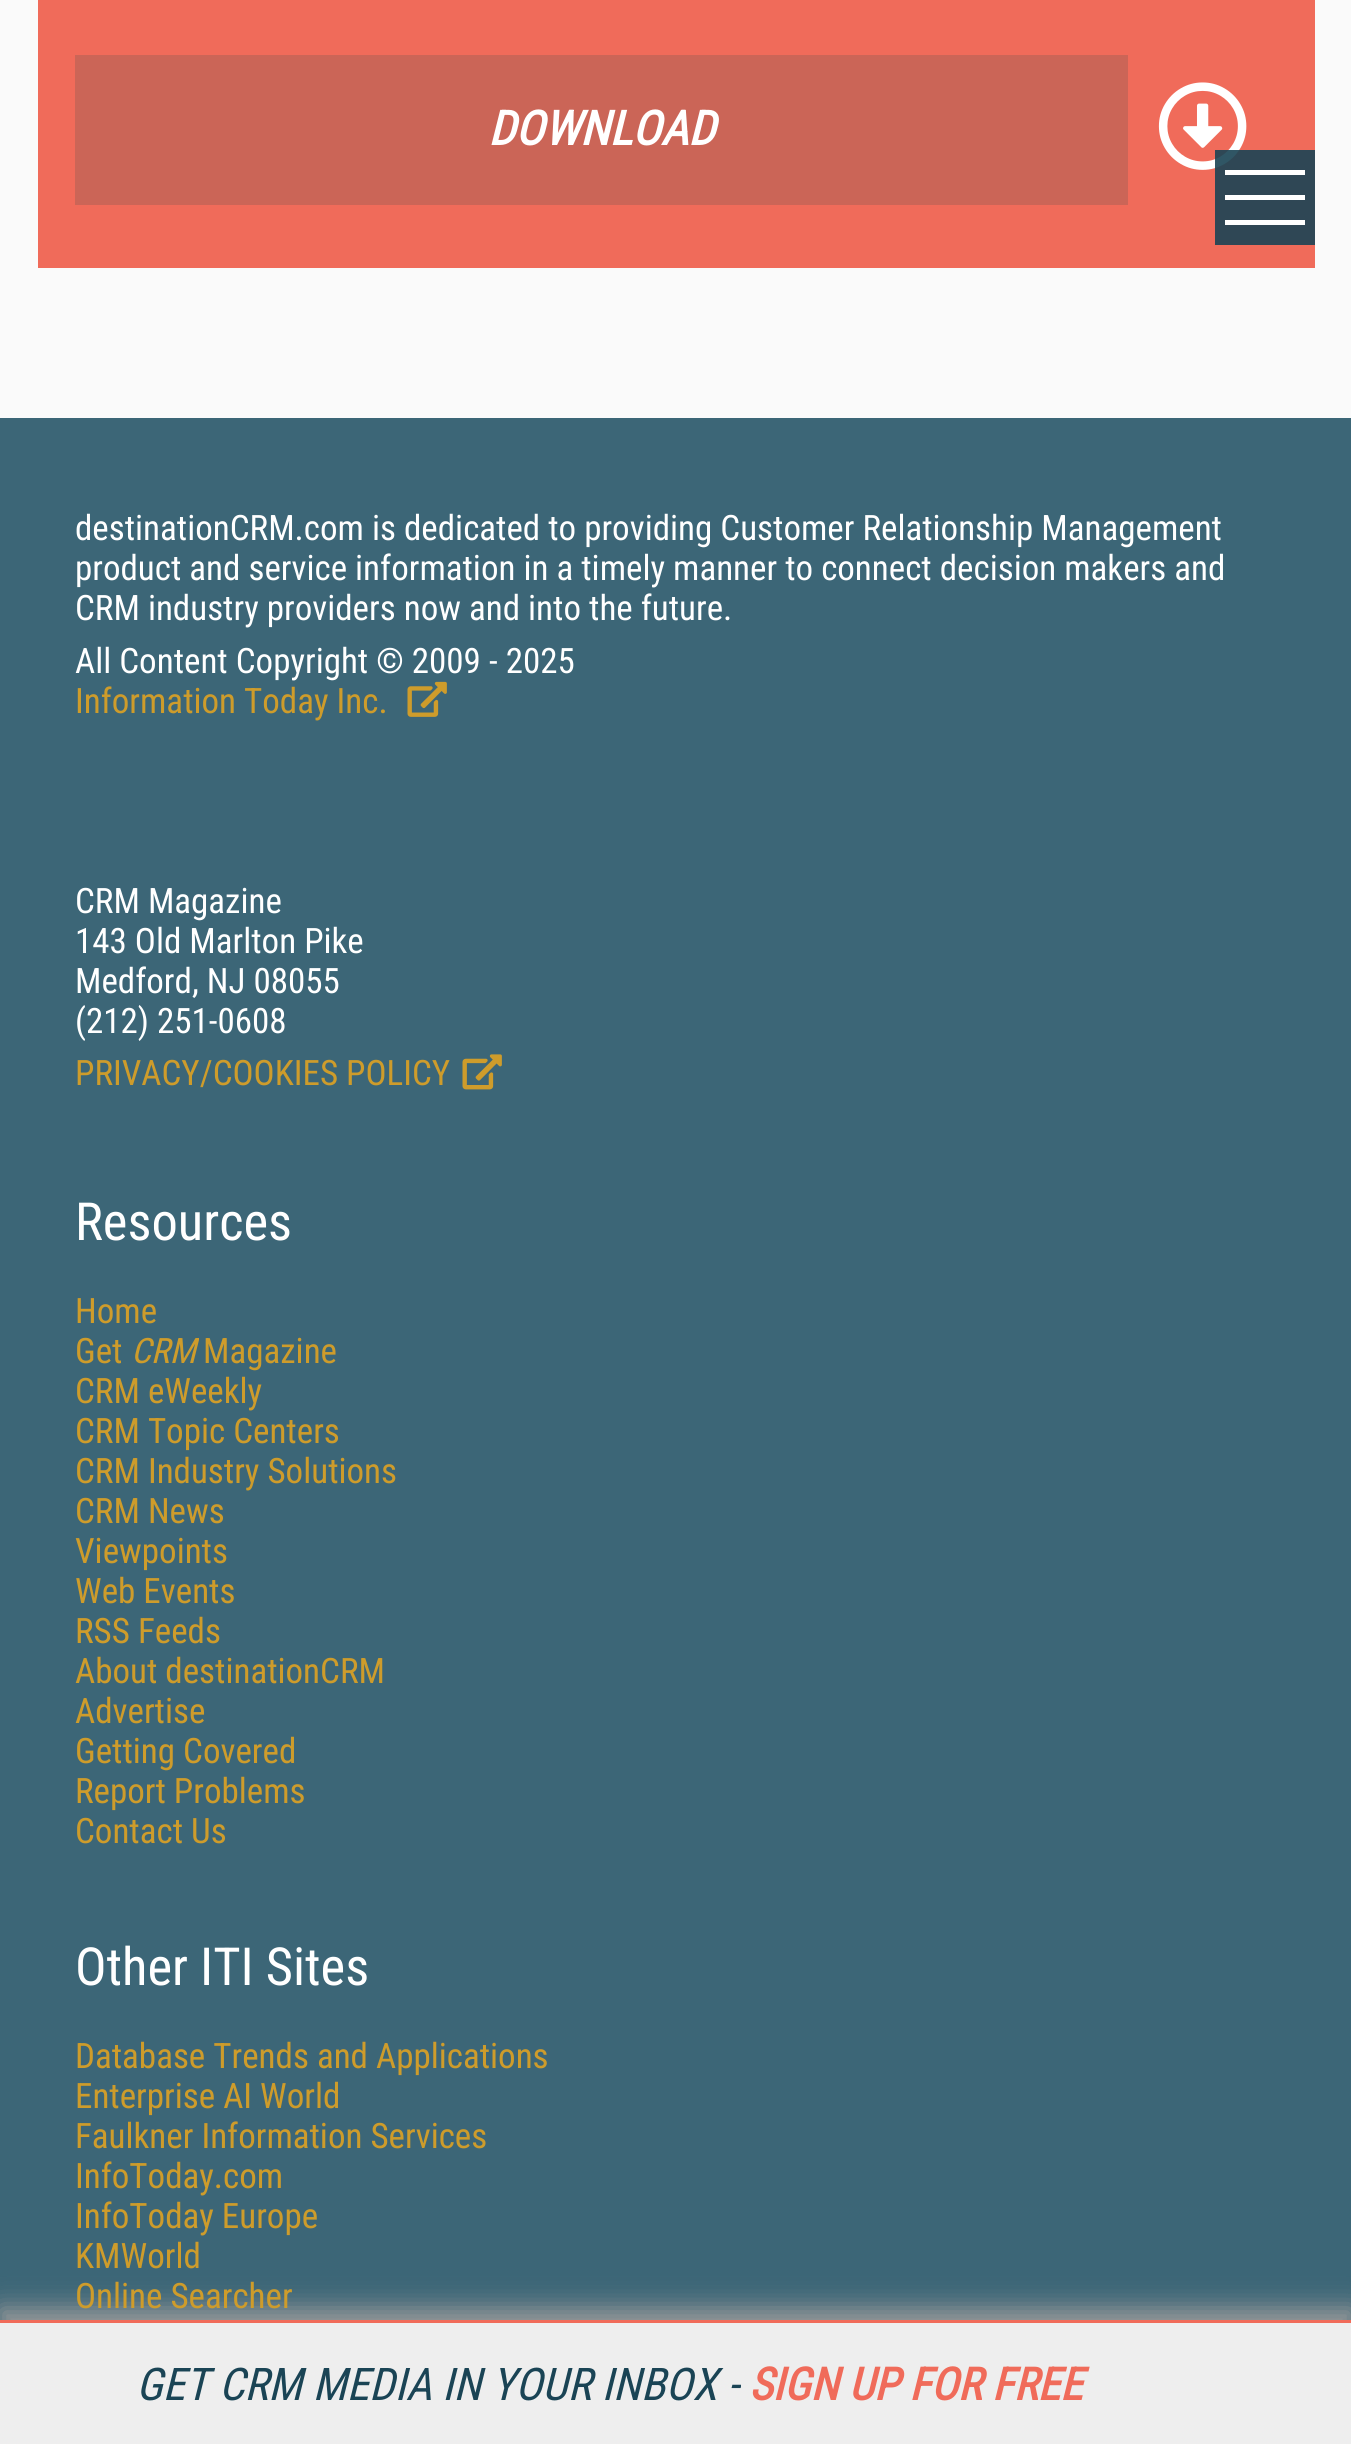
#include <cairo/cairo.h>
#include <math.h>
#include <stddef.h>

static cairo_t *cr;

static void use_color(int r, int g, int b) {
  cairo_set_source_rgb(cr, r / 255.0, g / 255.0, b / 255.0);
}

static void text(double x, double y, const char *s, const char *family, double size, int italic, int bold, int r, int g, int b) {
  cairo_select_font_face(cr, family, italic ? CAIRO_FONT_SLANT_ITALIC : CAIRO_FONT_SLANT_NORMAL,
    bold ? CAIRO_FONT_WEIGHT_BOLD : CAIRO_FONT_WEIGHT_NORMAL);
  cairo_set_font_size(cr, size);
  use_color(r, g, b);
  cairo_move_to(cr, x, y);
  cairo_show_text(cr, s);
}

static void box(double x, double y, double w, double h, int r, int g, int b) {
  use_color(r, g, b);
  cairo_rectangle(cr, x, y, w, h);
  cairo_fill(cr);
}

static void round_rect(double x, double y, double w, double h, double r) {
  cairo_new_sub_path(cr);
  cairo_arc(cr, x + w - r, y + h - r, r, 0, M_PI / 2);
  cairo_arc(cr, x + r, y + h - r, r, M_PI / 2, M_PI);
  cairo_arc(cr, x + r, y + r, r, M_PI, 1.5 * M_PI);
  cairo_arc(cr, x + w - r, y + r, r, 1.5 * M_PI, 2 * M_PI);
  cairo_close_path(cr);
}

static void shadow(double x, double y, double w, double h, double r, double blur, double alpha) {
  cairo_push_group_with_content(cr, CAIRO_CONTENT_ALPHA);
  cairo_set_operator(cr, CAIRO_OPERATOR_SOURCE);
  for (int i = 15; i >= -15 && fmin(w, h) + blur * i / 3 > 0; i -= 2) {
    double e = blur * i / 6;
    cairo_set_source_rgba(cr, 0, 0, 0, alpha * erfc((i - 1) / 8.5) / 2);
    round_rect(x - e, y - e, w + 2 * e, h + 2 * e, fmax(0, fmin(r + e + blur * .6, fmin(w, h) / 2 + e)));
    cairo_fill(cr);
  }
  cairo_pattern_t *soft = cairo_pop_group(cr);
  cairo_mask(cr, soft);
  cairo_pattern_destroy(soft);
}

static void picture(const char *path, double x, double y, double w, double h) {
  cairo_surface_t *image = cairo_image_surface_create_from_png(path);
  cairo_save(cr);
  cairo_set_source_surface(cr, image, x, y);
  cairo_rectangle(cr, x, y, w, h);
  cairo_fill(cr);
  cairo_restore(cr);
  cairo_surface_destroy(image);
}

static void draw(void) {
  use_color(250, 250, 250);
  cairo_paint(cr);
  box(38, 0, 1277, 268, 240, 107, 90);
  box(75, 55, 1053, 150, 203, 101, 87);
  picture("img_01.png", 1158, 82, 89, 88);
  cairo_set_source_rgba(cr, 0.102, 0.267, 0.333, 0.9);
  cairo_rectangle(cr, 1215, 150, 100, 95);
  cairo_fill(cr);
  box(1225, 195, 80, 5, 255, 255, 255);
  box(1225, 170, 80, 5, 255, 255, 255);
  box(1225, 220, 80, 5, 255, 255, 255);
  box(0, 418, 1351, 1902, 60, 102, 119);
  picture("img_02.png", 407, 681, 40, 36);
  picture("img_03.png", 462, 1054, 40, 36);
  use_color(153, 153, 153);
  shadow(0, 2308, 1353, 125, 0, 12.5, 1);
  box(0, 2323, 1351, 121, 238, 238, 238);
  box(0, 2320, 1351, 3, 240, 107, 90);
  text(488, 145, "DOWNLOAD", "Roboto Condensed", 47.5, 1, 1, 255, 255, 255);
  text(75, 540, "destinationCRM.com is dedicated to providing Customer Relationship Management", "Roboto Condensed", 35, 0, 0, 255, 255, 255);
  text(75, 580, "product and service information in a timely manner to connect decision makers and", "Roboto Condensed", 35, 0, 0, 255, 255, 255);
  text(75, 620, "CRM industry providers now and into the future.", "Roboto Condensed", 35, 0, 0, 255, 255, 255);
  text(75, 673, "All Content Copyright © 2009 - 2025", "Roboto Condensed", 35, 0, 0, 255, 255, 255);
  text(75, 713, "Information Today Inc.", "Roboto Condensed", 35, 0, 0, 206, 156, 43);
  text(75, 913, "CRM Magazine", "Roboto Condensed", 35, 0, 0, 255, 255, 255);
  text(75, 953, "143 Old Marlton Pike", "Roboto Condensed", 35, 0, 0, 255, 255, 255);
  text(75, 993, "Medford, NJ 08055", "Roboto Condensed", 35, 0, 0, 255, 255, 255);
  text(75, 1033, "(212) 251-0608", "Roboto Condensed", 35, 0, 0, 255, 255, 255);
  text(75, 1085, "PRIVACY/COOKIES POLICY", "Roboto Condensed", 35, 0, 0, 206, 156, 43);
  text(75, 1240, "Resources", "Roboto Condensed", 52.5, 0, 0, 255, 255, 255);
  text(75, 1323, "Home", "Roboto Condensed", 35, 0, 0, 206, 156, 43);
  text(75, 1363, "Get", "Roboto Condensed", 35, 0, 0, 206, 156, 43);
  text(131, 1363, "CRM", "Roboto Condensed", 35, 1, 0, 206, 156, 43);
  text(203, 1363, "Magazine", "Roboto Condensed", 35, 0, 0, 206, 156, 43);
  text(75, 1403, "CRM eWeekly", "Roboto Condensed", 35, 0, 0, 206, 156, 43);
  text(75, 1443, "CRM Topic Centers", "Roboto Condensed", 35, 0, 0, 206, 156, 43);
  text(75, 1483, "CRM Industry Solutions", "Roboto Condensed", 35, 0, 0, 206, 156, 43);
  text(75, 1523, "CRM News", "Roboto Condensed", 35, 0, 0, 206, 156, 43);
  text(75, 1563, "Viewpoints", "Roboto Condensed", 35, 0, 0, 206, 156, 43);
  text(75, 1603, "Web Events", "Roboto Condensed", 35, 0, 0, 206, 156, 43);
  text(75, 1643, "RSS Feeds", "Roboto Condensed", 35, 0, 0, 206, 156, 43);
  text(75, 1683, "About destinationCRM", "Roboto Condensed", 35, 0, 0, 206, 156, 43);
  text(75, 1723, "Advertise", "Roboto Condensed", 35, 0, 0, 206, 156, 43);
  text(75, 1763, "Getting Covered", "Roboto Condensed", 35, 0, 0, 206, 156, 43);
  text(75, 1803, "Report Problems", "Roboto Condensed", 35, 0, 0, 206, 156, 43);
  text(75, 1843, "Contact Us", "Roboto Condensed", 35, 0, 0, 206, 156, 43);
  text(75, 1985, "Other ITI Sites", "Roboto Condensed", 52.5, 0, 0, 255, 255, 255);
  text(75, 2068, "Database Trends and Applications", "Roboto Condensed", 35, 0, 0, 206, 156, 43);
  text(75, 2108, "Enterprise AI World", "Roboto Condensed", 35, 0, 0, 206, 156, 43);
  text(75, 2148, "Faulkner Information Services", "Roboto Condensed", 35, 0, 0, 206, 156, 43);
  text(75, 2188, "InfoToday.com", "Roboto Condensed", 35, 0, 0, 206, 156, 43);
  text(75, 2228, "InfoToday Europe", "Roboto Condensed", 35, 0, 0, 206, 156, 43);
  text(75, 2268, "KMWorld", "Roboto Condensed", 35, 0, 0, 206, 156, 43);
  text(75, 2308, "Online Searcher", "Roboto Condensed", 35, 0, 0, 206, 156, 43);
  text(136, 2400, "GET CRM MEDIA IN YOUR INBOX -", "Roboto Condensed", 45, 1, 0, 26, 68, 85);
  text(749, 2400, "SIGN UP FOR FREE", "Roboto Condensed", 45, 1, 1, 240, 107, 90);
}

int main(void) {
  cairo_surface_t *surface = cairo_image_surface_create(CAIRO_FORMAT_RGB24, 1351, 2444);
  cr = cairo_create(surface);
  cairo_font_options_t *options = cairo_font_options_create();
  cairo_font_options_set_hint_metrics(options, CAIRO_HINT_METRICS_OFF);
  cairo_font_options_set_hint_style(options, CAIRO_HINT_STYLE_NONE);
  cairo_set_font_options(cr, options);
  cairo_set_miter_limit(cr, 4);
  draw();
  cairo_surface_write_to_png(surface, "out.png");
  cairo_font_options_destroy(options);
  cairo_destroy(cr);
  cairo_surface_destroy(surface);
  return 0;
}
